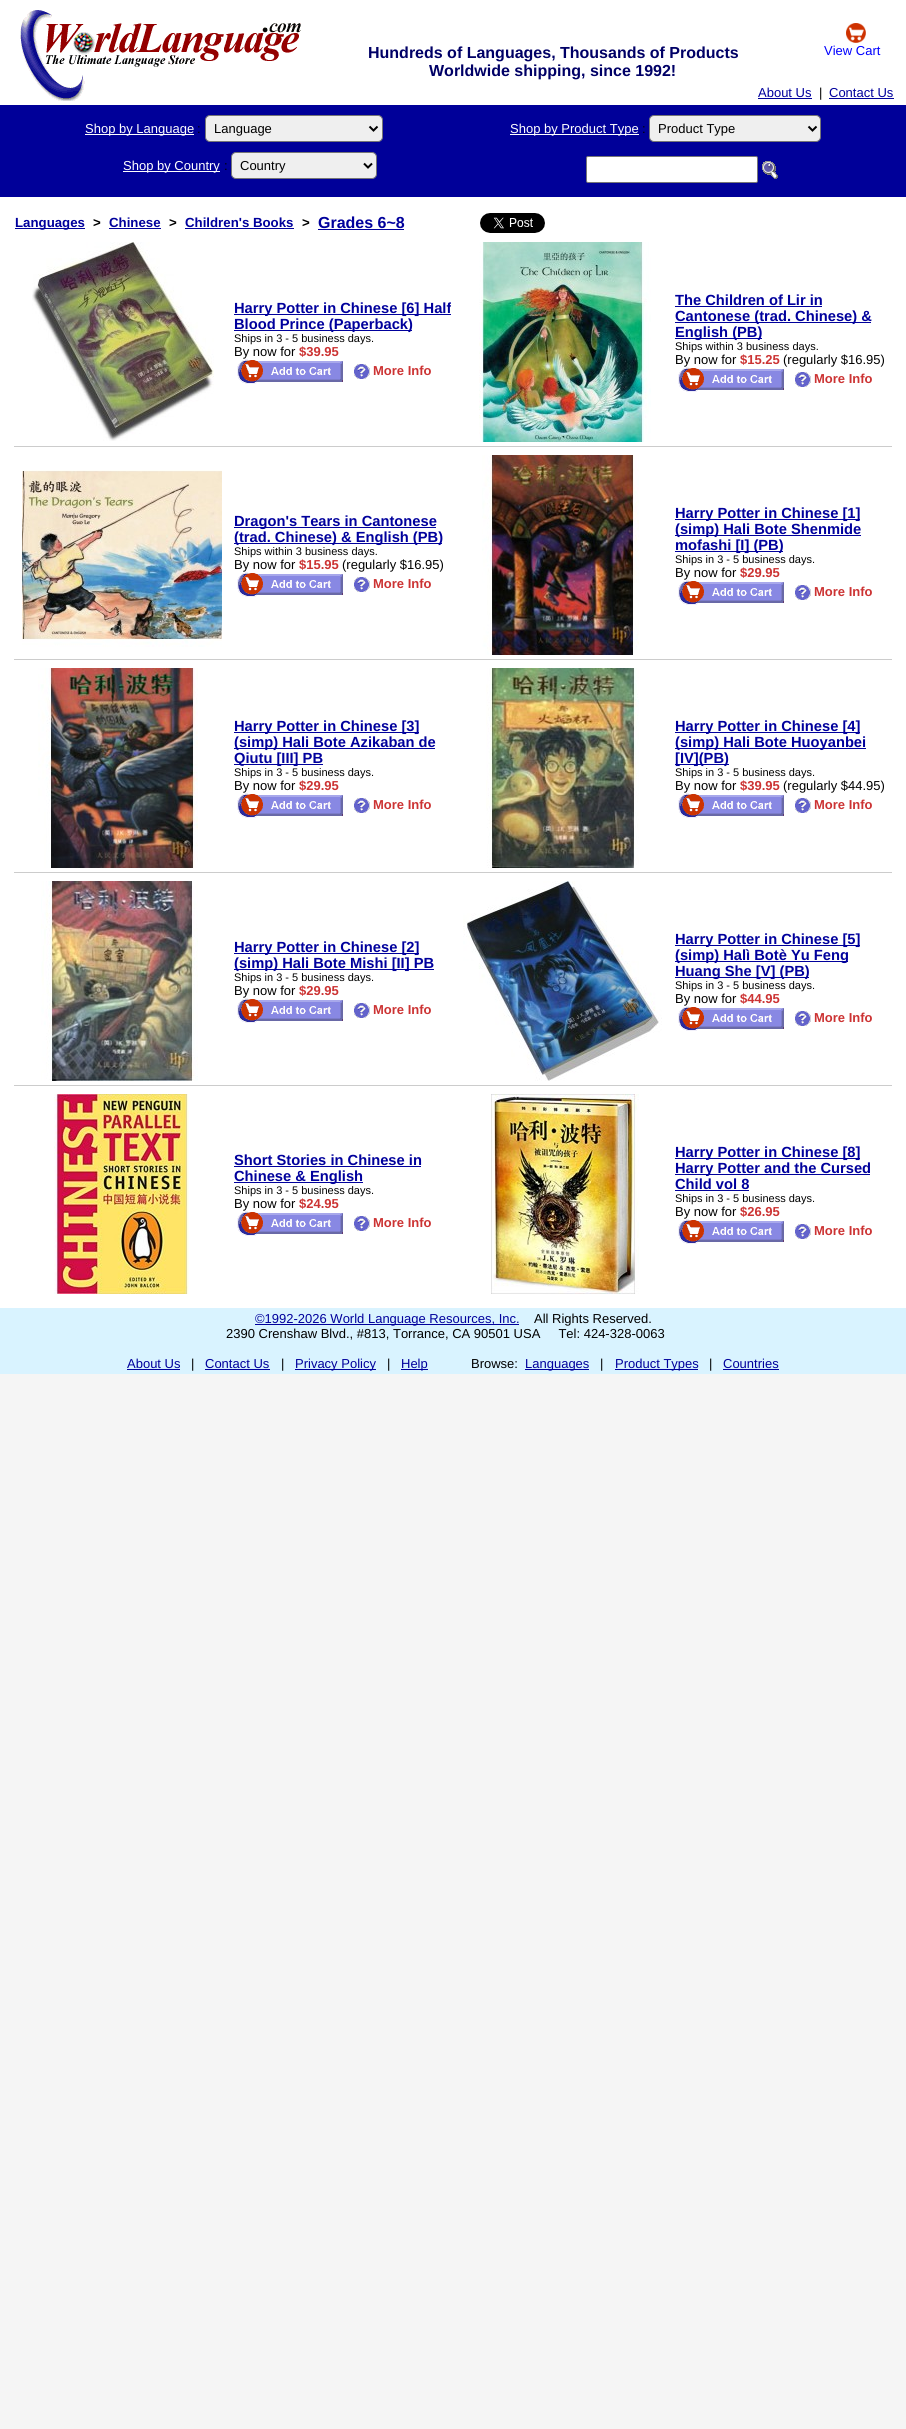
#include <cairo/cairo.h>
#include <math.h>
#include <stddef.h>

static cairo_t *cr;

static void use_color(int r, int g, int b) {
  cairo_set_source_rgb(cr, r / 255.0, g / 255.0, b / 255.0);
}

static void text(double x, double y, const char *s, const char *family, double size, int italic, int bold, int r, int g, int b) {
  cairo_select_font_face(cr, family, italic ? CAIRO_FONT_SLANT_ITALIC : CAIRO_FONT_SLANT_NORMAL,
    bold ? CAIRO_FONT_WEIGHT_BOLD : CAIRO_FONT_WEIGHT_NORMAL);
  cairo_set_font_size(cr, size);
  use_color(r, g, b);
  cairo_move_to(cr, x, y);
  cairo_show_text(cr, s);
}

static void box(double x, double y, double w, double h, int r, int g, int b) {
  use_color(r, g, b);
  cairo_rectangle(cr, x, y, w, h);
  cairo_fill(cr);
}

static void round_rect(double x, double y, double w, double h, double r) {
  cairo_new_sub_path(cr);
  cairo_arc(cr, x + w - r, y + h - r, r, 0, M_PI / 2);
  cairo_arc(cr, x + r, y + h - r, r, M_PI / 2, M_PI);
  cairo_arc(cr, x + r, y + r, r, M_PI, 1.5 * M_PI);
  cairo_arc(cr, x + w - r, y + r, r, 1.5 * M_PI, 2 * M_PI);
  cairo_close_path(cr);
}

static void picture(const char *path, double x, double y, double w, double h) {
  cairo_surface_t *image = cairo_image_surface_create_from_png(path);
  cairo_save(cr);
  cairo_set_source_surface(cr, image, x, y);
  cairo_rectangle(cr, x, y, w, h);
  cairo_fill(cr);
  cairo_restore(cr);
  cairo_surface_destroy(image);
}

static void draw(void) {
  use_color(245, 245, 245);
  cairo_paint(cr);
  box(0, 0, 906, 105, 255, 255, 255);
  picture("img_01.png", 20, 10, 281, 91);
  picture("img_02.png", 846, 23, 20, 20);
  box(758, 98, 54, 1, 0, 0, 156);
  box(829, 98, 65, 1, 0, 0, 156);
  box(0, 105, 906, 92, 0, 0, 153);
  box(85, 134, 109, 1, 255, 255, 255);
  use_color(239, 239, 239);
  round_rect(205.5, 115.5, 177, 26, 4.5);
  cairo_fill_preserve(cr);
  use_color(118, 118, 118);
  cairo_set_line_width(cr, 1);
  cairo_stroke(cr);
  cairo_new_path(cr);
  cairo_move_to(cr, 369.5, 126.5);
  cairo_line_to(cr, 373.5, 130.5);
  cairo_line_to(cr, 377.5, 126.5);
  use_color(0, 0, 0);
  cairo_set_line_width(cr, 2);
  cairo_stroke(cr);
  box(510, 134, 129, 1, 255, 255, 255);
  use_color(239, 239, 239);
  round_rect(649.5, 115.5, 171, 26, 4.5);
  cairo_fill_preserve(cr);
  use_color(118, 118, 118);
  cairo_set_line_width(cr, 1);
  cairo_stroke(cr);
  cairo_new_path(cr);
  cairo_move_to(cr, 808.5, 126.5);
  cairo_line_to(cr, 812.5, 130.5);
  cairo_line_to(cr, 816.5, 126.5);
  use_color(0, 0, 0);
  cairo_set_line_width(cr, 2);
  cairo_stroke(cr);
  box(123, 171, 97, 1, 255, 255, 255);
  use_color(239, 239, 239);
  round_rect(231.5, 152.5, 145, 26, 4.5);
  cairo_fill_preserve(cr);
  use_color(118, 118, 118);
  cairo_set_line_width(cr, 1);
  cairo_stroke(cr);
  cairo_new_path(cr);
  cairo_move_to(cr, 364, 163.5);
  cairo_line_to(cr, 368, 167.5);
  cairo_line_to(cr, 372, 163.5);
  use_color(0, 0, 0);
  cairo_set_line_width(cr, 2);
  cairo_stroke(cr);
  use_color(255, 255, 255);
  round_rect(586.5, 156.5, 171, 26, 1.5);
  cairo_fill_preserve(cr);
  use_color(118, 118, 118);
  cairo_set_line_width(cr, 1);
  cairo_stroke(cr);
  picture("img_03.png", 762, 161, 16, 18);
  box(0, 197, 906, 1111, 255, 255, 255);
  box(15, 228, 70, 1, 0, 0, 156);
  box(109, 228, 52, 1, 0, 0, 156);
  box(185, 228, 109, 1, 0, 0, 156);
  box(318, 229, 86, 1, 0, 0, 156);
  picture("img_04.png", 480, 213, 65, 20);
  picture("img_05.png", 32, 242, 182, 199);
  box(234, 314, 217, 1, 0, 0, 156);
  box(234, 330, 178, 1, 0, 0, 156);
  picture("img_06.png", 237, 359, 106, 25);
  picture("img_07.png", 354, 364, 16, 15);
  picture("img_08.png", 479, 242, 172, 200);
  box(675, 306, 147, 1, 0, 0, 156);
  box(675, 322, 196, 1, 0, 0, 156);
  box(675, 338, 87, 1, 0, 0, 156);
  picture("img_06.png", 678, 367, 106, 25);
  picture("img_07.png", 795, 372, 16, 15);
  box(14, 446, 878, 1, 204, 204, 204);
  picture("img_09.png", 22, 470, 200, 177);
  box(234, 527, 202, 1, 0, 0, 156);
  box(234, 543, 208, 1, 0, 0, 156);
  picture("img_06.png", 237, 572, 106, 25);
  picture("img_07.png", 354, 577, 16, 15);
  picture("img_10.png", 482, 455, 157, 200);
  box(675, 519, 185, 1, 0, 0, 156);
  box(675, 535, 186, 1, 0, 0, 156);
  box(675, 551, 108, 1, 0, 0, 156);
  picture("img_06.png", 678, 580, 106, 25);
  picture("img_07.png", 795, 585, 16, 15);
  box(14, 659, 878, 1, 204, 204, 204);
  picture("img_11.png", 38, 668, 160, 200);
  box(234, 732, 185, 1, 0, 0, 156);
  box(234, 748, 201, 1, 0, 0, 156);
  box(234, 764, 89, 1, 0, 0, 156);
  picture("img_06.png", 237, 793, 106, 25);
  picture("img_07.png", 354, 798, 16, 15);
  picture("img_12.png", 486, 668, 153, 200);
  box(675, 732, 185, 1, 0, 0, 156);
  box(675, 748, 191, 1, 0, 0, 156);
  box(675, 764, 54, 1, 0, 0, 156);
  picture("img_06.png", 678, 793, 106, 25);
  picture("img_07.png", 795, 798, 16, 15);
  box(14, 872, 878, 1, 204, 204, 204);
  picture("img_13.png", 41, 881, 157, 200);
  box(234, 953, 185, 1, 0, 0, 156);
  box(234, 969, 200, 1, 0, 0, 156);
  picture("img_06.png", 237, 998, 106, 25);
  picture("img_07.png", 354, 1003, 16, 15);
  picture("img_14.png", 463, 881, 199, 200);
  box(675, 945, 185, 1, 0, 0, 156);
  box(675, 961, 173, 1, 0, 0, 156);
  box(675, 977, 134, 1, 0, 0, 156);
  picture("img_06.png", 678, 1006, 106, 25);
  picture("img_07.png", 795, 1011, 16, 15);
  box(14, 1085, 878, 1, 204, 204, 204);
  picture("img_15.png", 54, 1094, 135, 200);
  box(234, 1166, 187, 1, 0, 0, 156);
  box(234, 1182, 129, 1, 0, 0, 156);
  picture("img_06.png", 237, 1211, 106, 25);
  picture("img_07.png", 354, 1216, 16, 15);
  picture("img_16.png", 491, 1094, 148, 200);
  box(675, 1158, 185, 1, 0, 0, 156);
  box(675, 1174, 195, 1, 0, 0, 156);
  box(675, 1190, 74, 1, 0, 0, 156);
  picture("img_06.png", 678, 1219, 106, 25);
  picture("img_07.png", 795, 1224, 16, 15);
  box(0, 1308, 906, 66, 217, 243, 255);
  box(255, 1324, 264, 1, 0, 0, 156);
  box(127, 1369, 53, 1, 0, 0, 156);
  box(205, 1369, 65, 1, 0, 0, 156);
  box(295, 1369, 81, 1, 0, 0, 156);
  box(401, 1369, 27, 1, 0, 0, 156);
  box(525, 1369, 64, 1, 0, 0, 156);
  box(615, 1369, 83, 1, 0, 0, 156);
  box(723, 1369, 56, 1, 0, 0, 156);
  text(368, 58, "Hundreds of Languages, Thousands of Products", "Liberation Sans", 16, 0, 1, 0, 0, 102);
  text(429, 76, "Worldwide shipping, since 1992!", "Liberation Sans", 16, 0, 1, 0, 0, 102);
  text(824, 55, "View Cart", "Liberation Sans", 13, 0, 0, 0, 0, 255);
  text(758, 97, "About Us", "Liberation Sans", 13, 0, 0, 0, 0, 156);
  text(819, 97, "|", "Liberation Sans", 13, 0, 0, 0, 0, 0);
  text(829, 97, "Contact Us", "Liberation Sans", 13, 0, 0, 0, 0, 156);
  text(85, 133, "Shop by Language", "Liberation Sans", 13, 0, 0, 255, 255, 255);
  text(197, 133, ":", "Liberation Sans", 13, 0, 0, 0, 0, 0);
  text(214, 133, "Language", "Liberation Sans", 13, 0, 0, 0, 0, 0);
  text(510, 133, "Shop by Product Type", "Liberation Sans", 13, 0, 0, 255, 255, 255);
  text(642, 133, ":", "Liberation Sans", 13, 0, 0, 0, 0, 0);
  text(658, 133, "Product Type", "Liberation Sans", 13, 0, 0, 0, 0, 0);
  text(123, 170, "Shop by Country", "Liberation Sans", 13, 0, 0, 255, 255, 255);
  text(224, 170, ":", "Liberation Sans", 13, 0, 0, 0, 0, 0);
  text(240, 170, "Country", "Liberation Sans", 13, 0, 0, 0, 0, 0);
  text(15, 227, "Languages", "Liberation Sans", 13.25, 0, 1, 0, 0, 156);
  text(93, 227, ">", "Liberation Sans", 13.25, 0, 1, 0, 0, 0);
  text(109, 227, "Chinese", "Liberation Sans", 13.25, 0, 1, 0, 0, 156);
  text(169, 227, ">", "Liberation Sans", 13.25, 0, 1, 0, 0, 0);
  text(185, 227, "Children's Books", "Liberation Sans", 13.25, 0, 1, 0, 0, 156);
  text(302, 227, ">", "Liberation Sans", 13.25, 0, 1, 0, 0, 0);
  text(318, 228, "Grades 6~8", "Liberation Sans", 16, 0, 1, 0, 0, 156);
  text(234, 313, "Harry Potter in Chinese [6] Half", "Liberation Sans", 14.7, 0, 1, 0, 0, 156);
  text(234, 329, "Blood Prince (Paperback)", "Liberation Sans", 14.7, 0, 1, 0, 0, 156);
  text(234, 342, "Ships in 3 - 5 business days.", "Liberation Sans", 11, 0, 0, 0, 0, 0);
  text(234, 356, "By now for", "Liberation Sans", 13, 0, 0, 0, 0, 0);
  text(299, 356, "$39.95", "Liberation Sans", 13, 0, 1, 204, 51, 51);
  text(373, 375, "More Info", "Liberation Sans", 13, 0, 1, 204, 51, 51);
  text(675, 305, "The Children of Lir in", "Liberation Sans", 14.7, 0, 1, 0, 0, 156);
  text(675, 321, "Cantonese (trad. Chinese) &", "Liberation Sans", 14.7, 0, 1, 0, 0, 156);
  text(675, 337, "English (PB)", "Liberation Sans", 14.7, 0, 1, 0, 0, 156);
  text(675, 350, "Ships within 3 business days.", "Liberation Sans", 11, 0, 0, 0, 0, 0);
  text(675, 364, "By now for", "Liberation Sans", 13, 0, 0, 0, 0, 0);
  text(740, 364, "$15.25", "Liberation Sans", 13, 0, 1, 204, 51, 51);
  text(783, 364, "(regularly $16.95)", "Liberation Sans", 13, 0, 0, 0, 0, 0);
  text(814, 383, "More Info", "Liberation Sans", 13, 0, 1, 204, 51, 51);
  text(234, 526, "Dragon's Tears in Cantonese", "Liberation Sans", 14.7, 0, 1, 0, 0, 156);
  text(234, 542, "(trad. Chinese) & English (PB)", "Liberation Sans", 14.7, 0, 1, 0, 0, 156);
  text(234, 555, "Ships within 3 business days.", "Liberation Sans", 11, 0, 0, 0, 0, 0);
  text(234, 569, "By now for", "Liberation Sans", 13, 0, 0, 0, 0, 0);
  text(299, 569, "$15.95", "Liberation Sans", 13, 0, 1, 204, 51, 51);
  text(342, 569, "(regularly $16.95)", "Liberation Sans", 13, 0, 0, 0, 0, 0);
  text(373, 588, "More Info", "Liberation Sans", 13, 0, 1, 204, 51, 51);
  text(675, 518, "Harry Potter in Chinese [1]", "Liberation Sans", 14.7, 0, 1, 0, 0, 156);
  text(675, 534, "(simp) Hali Bote Shenmide", "Liberation Sans", 14.7, 0, 1, 0, 0, 156);
  text(675, 550, "mofashi [I] (PB)", "Liberation Sans", 14.7, 0, 1, 0, 0, 156);
  text(675, 563, "Ships in 3 - 5 business days.", "Liberation Sans", 11, 0, 0, 0, 0, 0);
  text(675, 577, "By now for", "Liberation Sans", 13, 0, 0, 0, 0, 0);
  text(740, 577, "$29.95", "Liberation Sans", 13, 0, 1, 204, 51, 51);
  text(814, 596, "More Info", "Liberation Sans", 13, 0, 1, 204, 51, 51);
  text(234, 731, "Harry Potter in Chinese [3]", "Liberation Sans", 14.7, 0, 1, 0, 0, 156);
  text(234, 747, "(simp) Hali Bote Azikaban de", "Liberation Sans", 14.7, 0, 1, 0, 0, 156);
  text(234, 763, "Qiutu [III] PB", "Liberation Sans", 14.7, 0, 1, 0, 0, 156);
  text(234, 776, "Ships in 3 - 5 business days.", "Liberation Sans", 11, 0, 0, 0, 0, 0);
  text(234, 790, "By now for", "Liberation Sans", 13, 0, 0, 0, 0, 0);
  text(299, 790, "$29.95", "Liberation Sans", 13, 0, 1, 204, 51, 51);
  text(373, 809, "More Info", "Liberation Sans", 13, 0, 1, 204, 51, 51);
  text(675, 731, "Harry Potter in Chinese [4]", "Liberation Sans", 14.7, 0, 1, 0, 0, 156);
  text(675, 747, "(simp) Hali Bote Huoyanbei", "Liberation Sans", 14.7, 0, 1, 0, 0, 156);
  text(675, 763, "[IV](PB)", "Liberation Sans", 14.7, 0, 1, 0, 0, 156);
  text(675, 776, "Ships in 3 - 5 business days.", "Liberation Sans", 11, 0, 0, 0, 0, 0);
  text(675, 790, "By now for", "Liberation Sans", 13, 0, 0, 0, 0, 0);
  text(740, 790, "$39.95", "Liberation Sans", 13, 0, 1, 204, 51, 51);
  text(783, 790, "(regularly $44.95)", "Liberation Sans", 13, 0, 0, 0, 0, 0);
  text(814, 809, "More Info", "Liberation Sans", 13, 0, 1, 204, 51, 51);
  text(234, 952, "Harry Potter in Chinese [2]", "Liberation Sans", 14.7, 0, 1, 0, 0, 156);
  text(234, 968, "(simp) Hali Bote Mishi [II] PB", "Liberation Sans", 14.7, 0, 1, 0, 0, 156);
  text(234, 981, "Ships in 3 - 5 business days.", "Liberation Sans", 11, 0, 0, 0, 0, 0);
  text(234, 995, "By now for", "Liberation Sans", 13, 0, 0, 0, 0, 0);
  text(299, 995, "$29.95", "Liberation Sans", 13, 0, 1, 204, 51, 51);
  text(373, 1014, "More Info", "Liberation Sans", 13, 0, 1, 204, 51, 51);
  text(675, 944, "Harry Potter in Chinese [5]", "Liberation Sans", 14.7, 0, 1, 0, 0, 156);
  text(675, 960, "(simp) Halì Botè Yu Feng", "Liberation Sans", 14.7, 0, 1, 0, 0, 156);
  text(675, 976, "Huang She [V] (PB)", "Liberation Sans", 14.7, 0, 1, 0, 0, 156);
  text(675, 989, "Ships in 3 - 5 business days.", "Liberation Sans", 11, 0, 0, 0, 0, 0);
  text(675, 1003, "By now for", "Liberation Sans", 13, 0, 0, 0, 0, 0);
  text(740, 1003, "$44.95", "Liberation Sans", 13, 0, 1, 204, 51, 51);
  text(814, 1022, "More Info", "Liberation Sans", 13, 0, 1, 204, 51, 51);
  text(234, 1165, "Short Stories in Chinese in", "Liberation Sans", 14.7, 0, 1, 0, 0, 156);
  text(234, 1181, "Chinese & English", "Liberation Sans", 14.7, 0, 1, 0, 0, 156);
  text(234, 1194, "Ships in 3 - 5 business days.", "Liberation Sans", 11, 0, 0, 0, 0, 0);
  text(234, 1208, "By now for", "Liberation Sans", 13, 0, 0, 0, 0, 0);
  text(299, 1208, "$24.95", "Liberation Sans", 13, 0, 1, 204, 51, 51);
  text(373, 1227, "More Info", "Liberation Sans", 13, 0, 1, 204, 51, 51);
  text(675, 1157, "Harry Potter in Chinese [8]", "Liberation Sans", 14.7, 0, 1, 0, 0, 156);
  text(675, 1173, "Harry Potter and the Cursed", "Liberation Sans", 14.7, 0, 1, 0, 0, 156);
  text(675, 1189, "Child vol 8", "Liberation Sans", 14.7, 0, 1, 0, 0, 156);
  text(675, 1202, "Ships in 3 - 5 business days.", "Liberation Sans", 11, 0, 0, 0, 0, 0);
  text(675, 1216, "By now for", "Liberation Sans", 13, 0, 0, 0, 0, 0);
  text(740, 1216, "$26.95", "Liberation Sans", 13, 0, 1, 204, 51, 51);
  text(814, 1235, "More Info", "Liberation Sans", 13, 0, 1, 204, 51, 51);
  text(255, 1323, "©1992-2026 World Language Resources, Inc.", "Liberation Sans", 13, 0, 0, 0, 0, 156);
  text(534, 1323, "All Rights Reserved.", "Liberation Sans", 13, 0, 0, 0, 0, 0);
  text(226, 1338, "2390 Crenshaw Blvd., #813, Torrance, CA 90501 USA     Tel: 424-328-0063", "Liberation Sans", 13, 0, 0, 0, 0, 0);
  text(127, 1368, "About Us", "Liberation Sans", 13, 0, 0, 0, 0, 156);
  text(191, 1368, "|", "Liberation Sans", 13, 0, 0, 0, 0, 0);
  text(205, 1368, "Contact Us", "Liberation Sans", 13, 0, 0, 0, 0, 156);
  text(281, 1368, "|", "Liberation Sans", 13, 0, 0, 0, 0, 0);
  text(295, 1368, "Privacy Policy", "Liberation Sans", 13, 0, 0, 0, 0, 156);
  text(387, 1368, "|", "Liberation Sans", 13, 0, 0, 0, 0, 0);
  text(401, 1368, "Help", "Liberation Sans", 13, 0, 0, 0, 0, 156);
  text(471, 1368, "Browse:", "Liberation Sans", 13, 0, 0, 0, 0, 0);
  text(525, 1368, "Languages", "Liberation Sans", 13, 0, 0, 0, 0, 156);
  text(600, 1368, "|", "Liberation Sans", 13, 0, 0, 0, 0, 0);
  text(615, 1368, "Product Types", "Liberation Sans", 13, 0, 0, 0, 0, 156);
  text(709, 1368, "|", "Liberation Sans", 13, 0, 0, 0, 0, 0);
  text(723, 1368, "Countries", "Liberation Sans", 13, 0, 0, 0, 0, 156);
}

int main(void) {
  cairo_surface_t *surface = cairo_image_surface_create(CAIRO_FORMAT_RGB24, 906, 2429);
  cr = cairo_create(surface);
  cairo_font_options_t *options = cairo_font_options_create();
  cairo_font_options_set_hint_metrics(options, CAIRO_HINT_METRICS_OFF);
  cairo_font_options_set_hint_style(options, CAIRO_HINT_STYLE_NONE);
  cairo_set_font_options(cr, options);
  cairo_set_miter_limit(cr, 4);
  draw();
  cairo_surface_write_to_png(surface, "out.png");
  cairo_font_options_destroy(options);
  cairo_destroy(cr);
  cairo_surface_destroy(surface);
  return 0;
}
